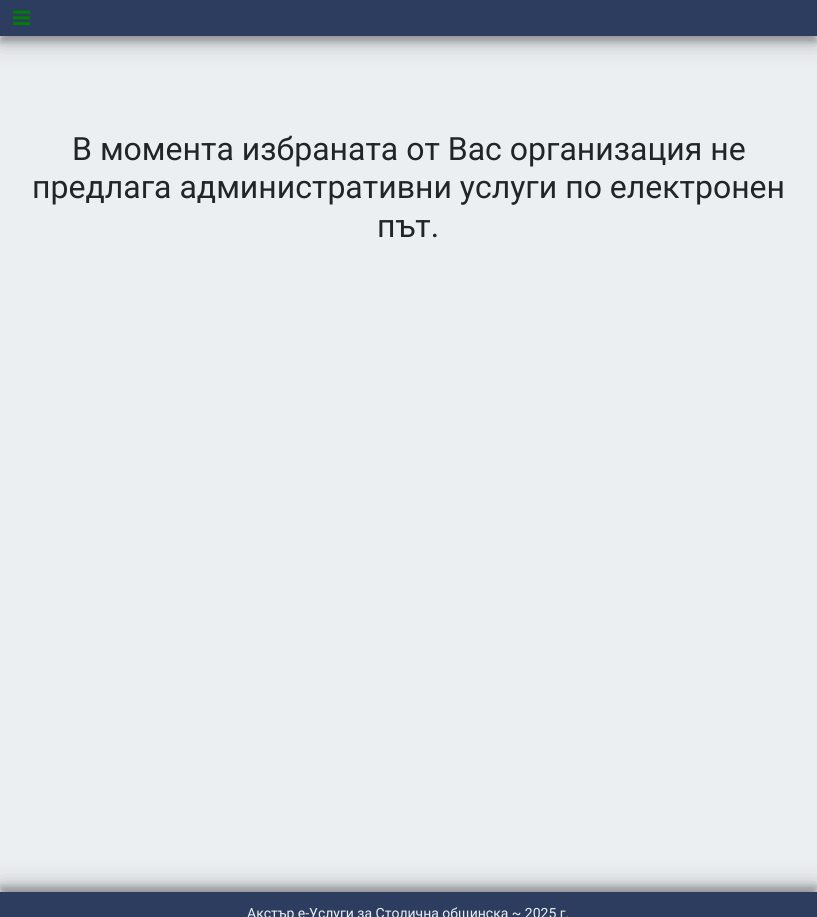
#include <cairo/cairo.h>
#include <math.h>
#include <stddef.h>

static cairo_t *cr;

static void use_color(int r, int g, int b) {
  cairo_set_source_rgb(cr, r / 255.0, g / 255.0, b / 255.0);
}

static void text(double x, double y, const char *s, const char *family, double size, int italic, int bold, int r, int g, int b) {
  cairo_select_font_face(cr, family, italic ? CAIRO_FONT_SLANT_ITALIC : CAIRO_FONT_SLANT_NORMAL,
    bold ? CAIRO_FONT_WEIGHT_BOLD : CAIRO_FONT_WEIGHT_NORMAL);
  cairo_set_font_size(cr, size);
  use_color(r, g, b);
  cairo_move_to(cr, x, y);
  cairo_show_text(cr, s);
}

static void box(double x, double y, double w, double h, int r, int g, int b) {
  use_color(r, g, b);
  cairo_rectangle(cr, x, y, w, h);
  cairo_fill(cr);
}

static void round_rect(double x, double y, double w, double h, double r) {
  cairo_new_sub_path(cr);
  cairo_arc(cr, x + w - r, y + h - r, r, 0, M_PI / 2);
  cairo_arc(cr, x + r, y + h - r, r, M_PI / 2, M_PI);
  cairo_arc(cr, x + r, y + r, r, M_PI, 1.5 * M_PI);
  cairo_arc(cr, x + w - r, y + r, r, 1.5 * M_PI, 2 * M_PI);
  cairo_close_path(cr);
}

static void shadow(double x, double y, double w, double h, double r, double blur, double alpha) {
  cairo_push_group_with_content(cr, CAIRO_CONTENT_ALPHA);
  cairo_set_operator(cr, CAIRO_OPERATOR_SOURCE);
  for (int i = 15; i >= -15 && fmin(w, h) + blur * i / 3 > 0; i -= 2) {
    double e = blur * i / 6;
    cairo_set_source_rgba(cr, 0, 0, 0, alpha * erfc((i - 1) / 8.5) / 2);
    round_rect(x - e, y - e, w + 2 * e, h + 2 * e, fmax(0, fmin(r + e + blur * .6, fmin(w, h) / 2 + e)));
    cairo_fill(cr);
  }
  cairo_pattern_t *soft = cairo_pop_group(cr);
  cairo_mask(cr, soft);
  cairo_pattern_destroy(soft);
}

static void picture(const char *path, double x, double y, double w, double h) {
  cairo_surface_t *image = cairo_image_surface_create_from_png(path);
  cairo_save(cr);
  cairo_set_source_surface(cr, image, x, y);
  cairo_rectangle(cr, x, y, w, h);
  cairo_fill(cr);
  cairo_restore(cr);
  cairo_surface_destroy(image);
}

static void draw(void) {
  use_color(236, 239, 241);
  cairo_paint(cr);
  use_color(0, 0, 0);
  shadow(0, 6, 817, 36, 0, 3, 0.23);
  shadow(0, 10, 817, 36, 0, 10, 0.19);
  box(0, 0, 817, 36, 45, 61, 96);
  picture("img_01.png", 13, 10, 18, 15);
  use_color(0, 0, 0);
  shadow(0, 886, 817, 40, 0, 3, 0.23);
  shadow(0, 882, 817, 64, 0, 10, 0.19);
  box(0, 892, 817, 25, 45, 61, 96);
  text(72, 160, "В момента избраната от Вас организация не", "Roboto", 32, 0, 0, 33, 37, 41);
  text(32, 198, "предлага административни услуги по електронен", "Roboto", 32, 0, 0, 33, 37, 41);
  text(377, 237, "път.", "Roboto", 32, 0, 0, 33, 37, 41);
  text(247, 918, "Акстър е-Услуги за Столична общинска ~ 2025 г.", "Roboto", 14, 0, 0, 236, 239, 241);
}

int main(void) {
  cairo_surface_t *surface = cairo_image_surface_create(CAIRO_FORMAT_RGB24, 817, 917);
  cr = cairo_create(surface);
  cairo_font_options_t *options = cairo_font_options_create();
  cairo_font_options_set_hint_metrics(options, CAIRO_HINT_METRICS_OFF);
  cairo_font_options_set_hint_style(options, CAIRO_HINT_STYLE_NONE);
  cairo_set_font_options(cr, options);
  cairo_set_miter_limit(cr, 4);
  draw();
  cairo_surface_write_to_png(surface, "out.png");
  cairo_font_options_destroy(options);
  cairo_destroy(cr);
  cairo_surface_destroy(surface);
  return 0;
}
